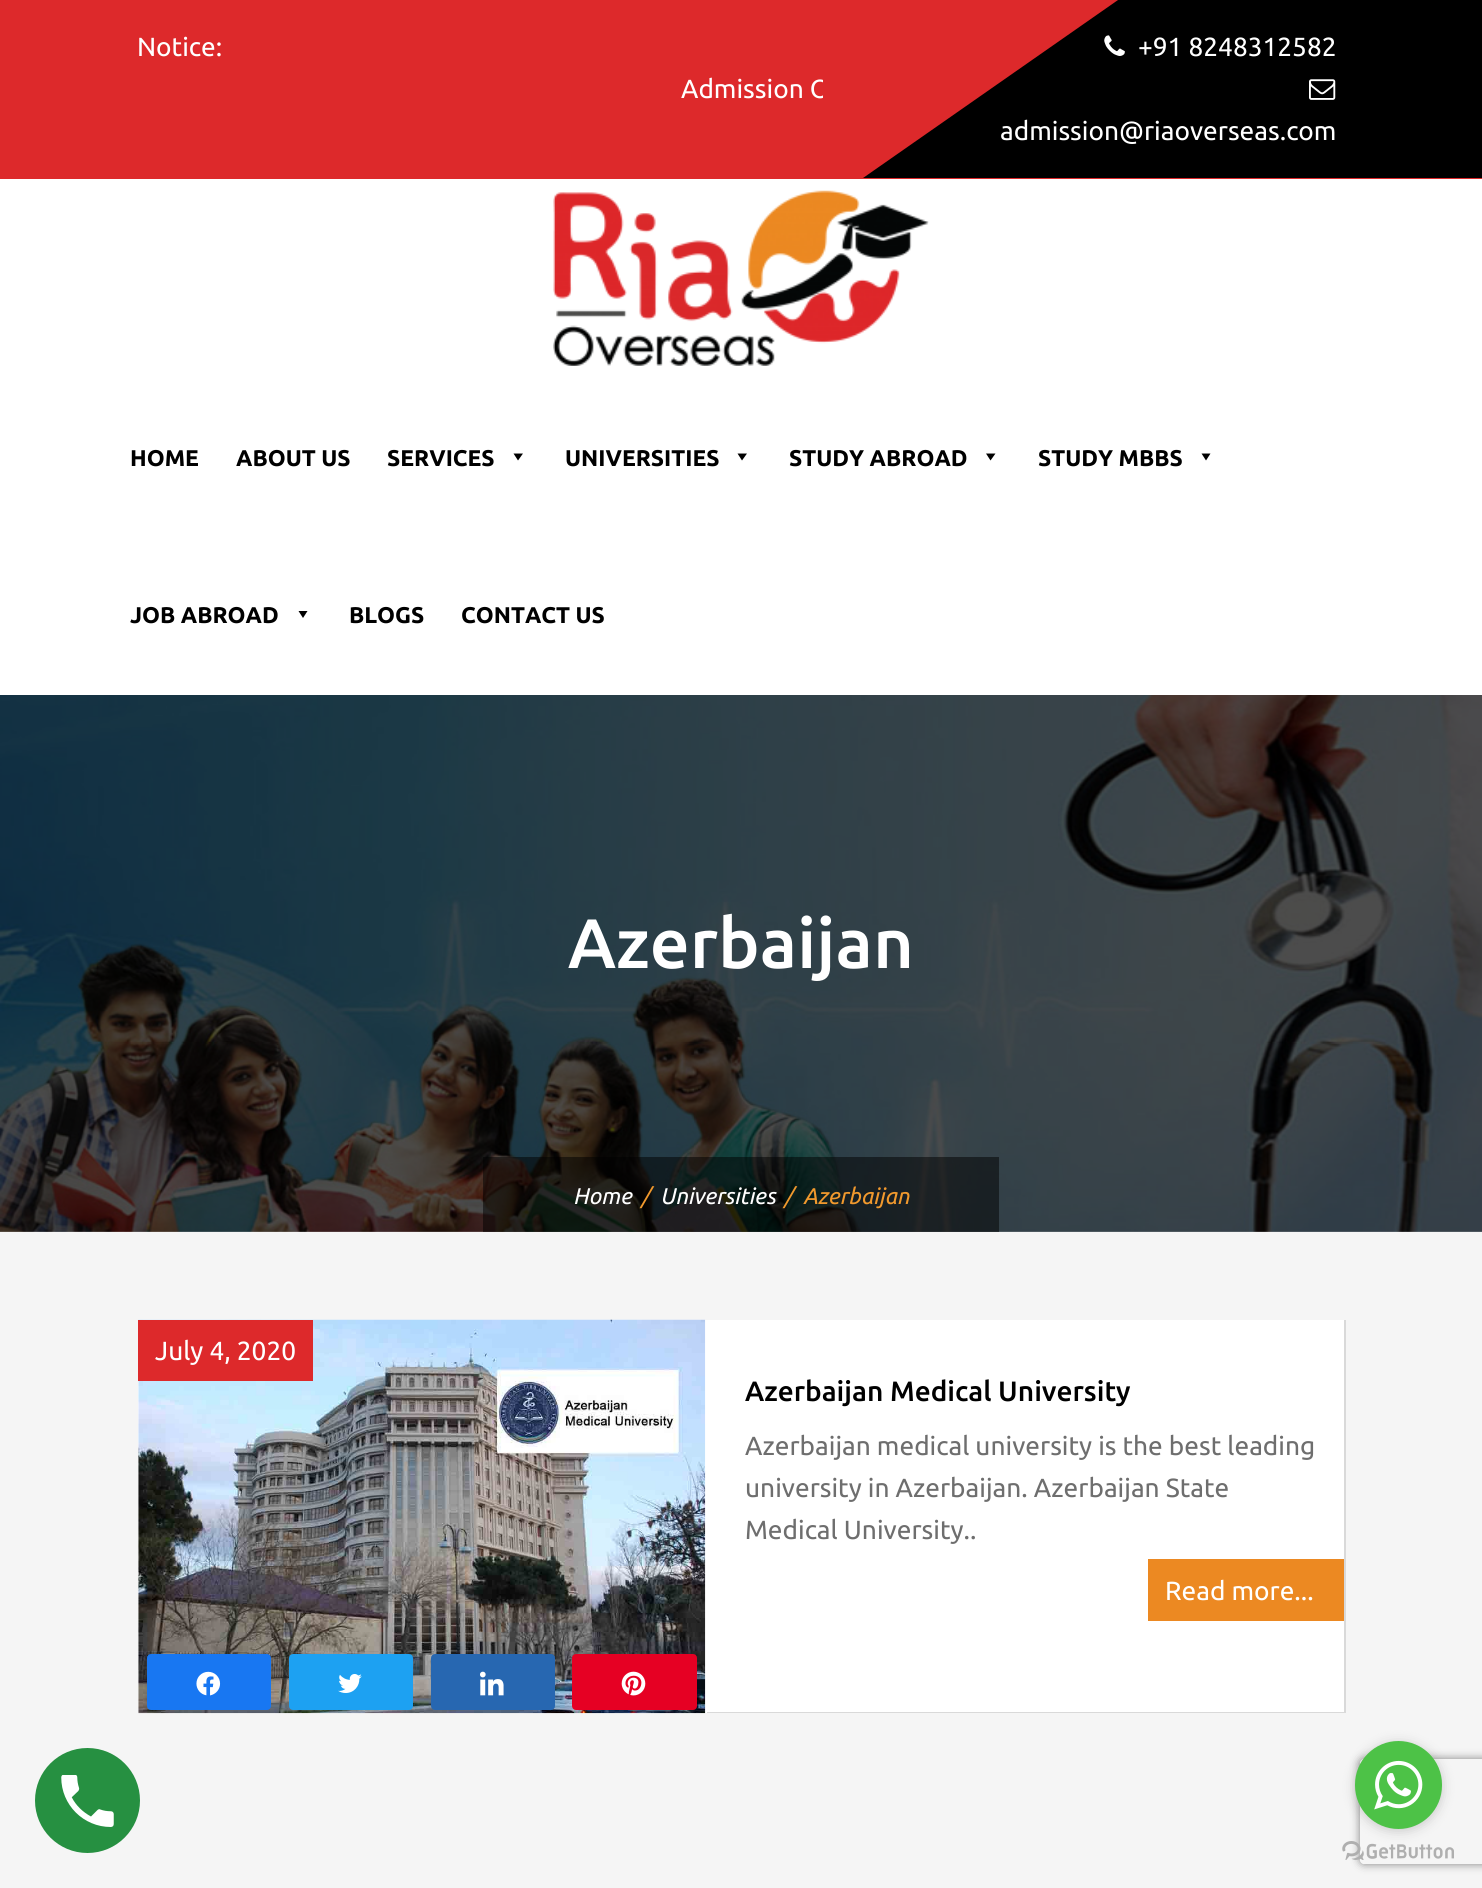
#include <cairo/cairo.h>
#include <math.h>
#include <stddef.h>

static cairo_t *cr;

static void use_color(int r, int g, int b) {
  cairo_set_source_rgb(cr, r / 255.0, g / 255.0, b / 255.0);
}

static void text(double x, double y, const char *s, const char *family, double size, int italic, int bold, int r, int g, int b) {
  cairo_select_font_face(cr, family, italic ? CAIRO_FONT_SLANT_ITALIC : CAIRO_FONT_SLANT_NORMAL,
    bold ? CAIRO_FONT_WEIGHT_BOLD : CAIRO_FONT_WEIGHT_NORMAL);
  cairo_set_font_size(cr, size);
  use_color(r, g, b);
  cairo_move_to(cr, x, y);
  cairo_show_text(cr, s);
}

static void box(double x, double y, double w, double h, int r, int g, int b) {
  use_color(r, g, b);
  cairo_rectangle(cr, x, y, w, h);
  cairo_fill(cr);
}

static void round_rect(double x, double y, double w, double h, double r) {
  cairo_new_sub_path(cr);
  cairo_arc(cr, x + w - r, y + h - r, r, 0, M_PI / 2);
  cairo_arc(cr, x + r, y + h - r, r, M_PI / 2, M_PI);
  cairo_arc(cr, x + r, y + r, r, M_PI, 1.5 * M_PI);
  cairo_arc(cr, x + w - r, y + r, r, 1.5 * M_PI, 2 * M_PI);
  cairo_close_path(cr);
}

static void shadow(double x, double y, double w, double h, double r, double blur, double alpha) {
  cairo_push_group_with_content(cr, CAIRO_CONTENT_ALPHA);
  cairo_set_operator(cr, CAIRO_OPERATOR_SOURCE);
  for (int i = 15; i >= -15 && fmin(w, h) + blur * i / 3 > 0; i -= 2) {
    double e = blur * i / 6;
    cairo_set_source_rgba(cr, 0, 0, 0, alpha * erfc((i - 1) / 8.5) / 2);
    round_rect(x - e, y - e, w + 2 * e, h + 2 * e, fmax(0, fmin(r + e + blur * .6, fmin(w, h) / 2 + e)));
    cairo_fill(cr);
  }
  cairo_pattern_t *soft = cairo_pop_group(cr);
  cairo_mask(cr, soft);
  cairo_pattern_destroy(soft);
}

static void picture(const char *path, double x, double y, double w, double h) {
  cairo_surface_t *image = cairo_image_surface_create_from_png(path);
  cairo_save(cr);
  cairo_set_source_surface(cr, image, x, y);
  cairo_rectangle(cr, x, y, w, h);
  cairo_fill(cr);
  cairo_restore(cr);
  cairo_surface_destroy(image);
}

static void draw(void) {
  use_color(255, 255, 255);
  cairo_paint(cr);
  box(0, 0, 1482, 179, 221, 41, 43);
  use_color(0, 0, 0);
  cairo_new_path(cr);
  cairo_move_to(cr, 1118, 0);
  cairo_line_to(cr, 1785, 0);
  cairo_line_to(cr, 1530, 178);
  cairo_line_to(cr, 863, 178);
  cairo_close_path(cr);
  cairo_fill(cr);
  picture("img_01.png", 1104, 35, 21, 21);
  picture("img_02.png", 1309, 79, 27, 21);
  picture("img_03.png", 553, 190, 376, 176);
  cairo_new_path(cr);
  cairo_move_to(cr, 523, 453.5);
  cairo_line_to(cr, 518, 460.5);
  cairo_line_to(cr, 513.5, 453.5);
  cairo_close_path(cr);
  cairo_fill(cr);
  cairo_new_path(cr);
  cairo_move_to(cr, 747, 453.5);
  cairo_line_to(cr, 742, 460.5);
  cairo_line_to(cr, 737.5, 453.5);
  cairo_close_path(cr);
  cairo_fill(cr);
  cairo_new_path(cr);
  cairo_move_to(cr, 995.5, 453.5);
  cairo_line_to(cr, 990.5, 460.5);
  cairo_line_to(cr, 986, 453.5);
  cairo_close_path(cr);
  cairo_fill(cr);
  cairo_new_path(cr);
  cairo_move_to(cr, 1210.5, 453.5);
  cairo_line_to(cr, 1206, 460.5);
  cairo_line_to(cr, 1201.5, 453.5);
  cairo_close_path(cr);
  cairo_fill(cr);
  cairo_new_path(cr);
  cairo_move_to(cr, 307.5, 611);
  cairo_line_to(cr, 303, 618);
  cairo_line_to(cr, 298.5, 611);
  cairo_close_path(cr);
  cairo_fill(cr);
  picture("img_04.png", 0, 695, 1482, 537);
  cairo_set_source_rgba(cr, 0, 0, 0, 0.5);
  cairo_rectangle(cr, 483, 1157, 516, 75);
  cairo_fill(cr);
  box(0, 1232, 1482, 656, 245, 245, 245);
  box(138, 1320, 1206, 393, 255, 255, 255);
  picture("img_05.png", 138, 1319, 568, 395);
  use_color(24, 119, 242);
  round_rect(148, 1655, 122, 54, 3);
  cairo_fill_preserve(cr);
  cairo_stroke(cr);
  picture("img_06.png", 196, 1671, 25, 25);
  use_color(29, 161, 242);
  round_rect(290, 1655, 122, 54, 3);
  cairo_fill_preserve(cr);
  cairo_stroke(cr);
  picture("img_07.png", 338, 1674, 24, 19);
  use_color(39, 103, 177);
  round_rect(432, 1655, 122, 54, 3);
  cairo_fill_preserve(cr);
  cairo_stroke(cr);
  picture("img_08.png", 480, 1671, 24, 25);
  use_color(230, 0, 35);
  round_rect(573, 1655, 123, 54, 3);
  cairo_fill_preserve(cr);
  cairo_stroke(cr);
  picture("img_09.png", 621, 1671, 25, 25);
  box(138, 1320, 175, 61, 221, 41, 43);
  box(1344, 1320, 2, 393, 217, 217, 217);
  box(707, 1712, 639, 1, 217, 217, 217);
  box(1148, 1559, 196, 62, 236, 137, 34);
  cairo_save(cr);
  cairo_set_fill_rule(cr, CAIRO_FILL_RULE_EVEN_ODD);
  cairo_new_path(cr);
  cairo_move_to(cr, 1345, 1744);
  cairo_line_to(cr, 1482, 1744);
  cairo_line_to(cr, 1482, 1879);
  cairo_line_to(cr, 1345, 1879);
  cairo_close_path(cr);
  cairo_move_to(cr, 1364, 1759);
  cairo_line_to(cr, 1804, 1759);
  cairo_curve_to(cr, 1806, 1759, 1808, 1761, 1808, 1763);
  cairo_line_to(cr, 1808, 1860);
  cairo_curve_to(cr, 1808, 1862, 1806, 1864, 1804, 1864);
  cairo_line_to(cr, 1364, 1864);
  cairo_curve_to(cr, 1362, 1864, 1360, 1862, 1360, 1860);
  cairo_line_to(cr, 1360, 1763);
  cairo_curve_to(cr, 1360, 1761, 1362, 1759, 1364, 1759);
  cairo_close_path(cr);
  cairo_clip(cr);
  use_color(128, 128, 128);
  shadow(1360, 1759, 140, 105, 4, 4.5, 1);
  cairo_restore(cr);
  picture("img_11.png", 1342, 1841, 112, 19);
  use_color(136, 136, 136);
  shadow(1355, 1743, 87, 88, 43.5, 6, 0.4);
  use_color(77, 194, 71);
  round_rect(1355, 1741, 87, 88, 43.5);
  cairo_fill(cr);
  picture("img_10.png", 1374, 1760, 49, 50);
  use_color(38, 144, 65);
  cairo_arc(cr, 87.5, 1800.5, 52.5, 0, 2 * M_PI);
  cairo_fill(cr);
  picture("img_12.png", 61, 1775, 53, 52);
  text(137, 56, "Notice:", "Ubuntu", 26.25, 0, 0, 255, 255, 255);
  cairo_save(cr);
  cairo_rectangle(cr, 138, 68, 685, 42);
  cairo_clip(cr);
  text(681, 98, "Admission O", "Ubuntu", 26.25, 0, 0, 255, 255, 255);
  cairo_restore(cr);
  text(1138, 56, "+91 8248312582", "Ubuntu", 26.25, 0, 0, 255, 255, 255);
  text(1000, 140, "admission@riaoverseas.com", "Ubuntu", 26.25, 0, 0, 255, 255, 255);
  text(130, 466, "HOME", "Ubuntu", 22.75, 0, 1, 0, 0, 0);
  text(236, 466, "ABOUT US", "Ubuntu", 22.75, 0, 1, 0, 0, 0);
  text(387, 466, "SERVICES", "Ubuntu", 22.75, 0, 1, 0, 0, 0);
  text(565, 466, "UNIVERSITIES", "Ubuntu", 22.75, 0, 1, 0, 0, 0);
  text(789, 466, "STUDY ABROAD", "Ubuntu", 22.75, 0, 1, 0, 0, 0);
  text(1038, 466, "STUDY MBBS", "Ubuntu", 22.75, 0, 1, 0, 0, 0);
  text(130, 623, "JOB ABROAD", "Ubuntu", 22.75, 0, 1, 0, 0, 0);
  text(349, 623, "BLOGS", "Ubuntu", 22.75, 0, 1, 0, 0, 0);
  text(461, 623, "CONTACT US", "Ubuntu", 22.75, 0, 1, 0, 0, 0);
  text(568, 968, "Azerbaijan", "Ubuntu Medium", 70, 0, 0, 255, 255, 255);
  text(573, 1204, "Home", "Ubuntu", 22.75, 1, 0, 255, 255, 255);
  text(641, 1204, "/", "Ubuntu", 22.75, 1, 0, 241, 153, 45);
  text(660, 1204, "Universities", "Ubuntu", 22.75, 1, 0, 255, 255, 255);
  text(784, 1204, "/", "Ubuntu", 22.75, 1, 0, 241, 153, 45);
  text(803, 1204, "Azerbaijan", "Ubuntu", 22.75, 1, 0, 241, 153, 45);
  text(155, 1360, "July 4, 2020", "Ubuntu", 26.25, 0, 0, 255, 255, 255);
  text(745, 1401, "Azerbaijan Medical University", "Ubuntu Medium", 28, 0, 0, 0, 0, 0);
  text(745, 1455, "Azerbaijan medical university is the best leading", "Ubuntu", 26.25, 0, 0, 110, 110, 110);
  text(745, 1497, "university in Azerbaijan. Azerbaijan State", "Ubuntu", 26.25, 0, 0, 110, 110, 110);
  text(745, 1539, "Medical University..", "Ubuntu", 26.25, 0, 0, 110, 110, 110);
  text(1165, 1600, "Read more...", "Ubuntu", 26.25, 0, 0, 255, 255, 255);
}

int main(void) {
  cairo_surface_t *surface = cairo_image_surface_create(CAIRO_FORMAT_RGB24, 1482, 1888);
  cr = cairo_create(surface);
  cairo_font_options_t *options = cairo_font_options_create();
  cairo_font_options_set_hint_metrics(options, CAIRO_HINT_METRICS_OFF);
  cairo_font_options_set_hint_style(options, CAIRO_HINT_STYLE_NONE);
  cairo_set_font_options(cr, options);
  cairo_set_miter_limit(cr, 4);
  draw();
  cairo_surface_write_to_png(surface, "out.png");
  cairo_font_options_destroy(options);
  cairo_destroy(cr);
  cairo_surface_destroy(surface);
  return 0;
}
